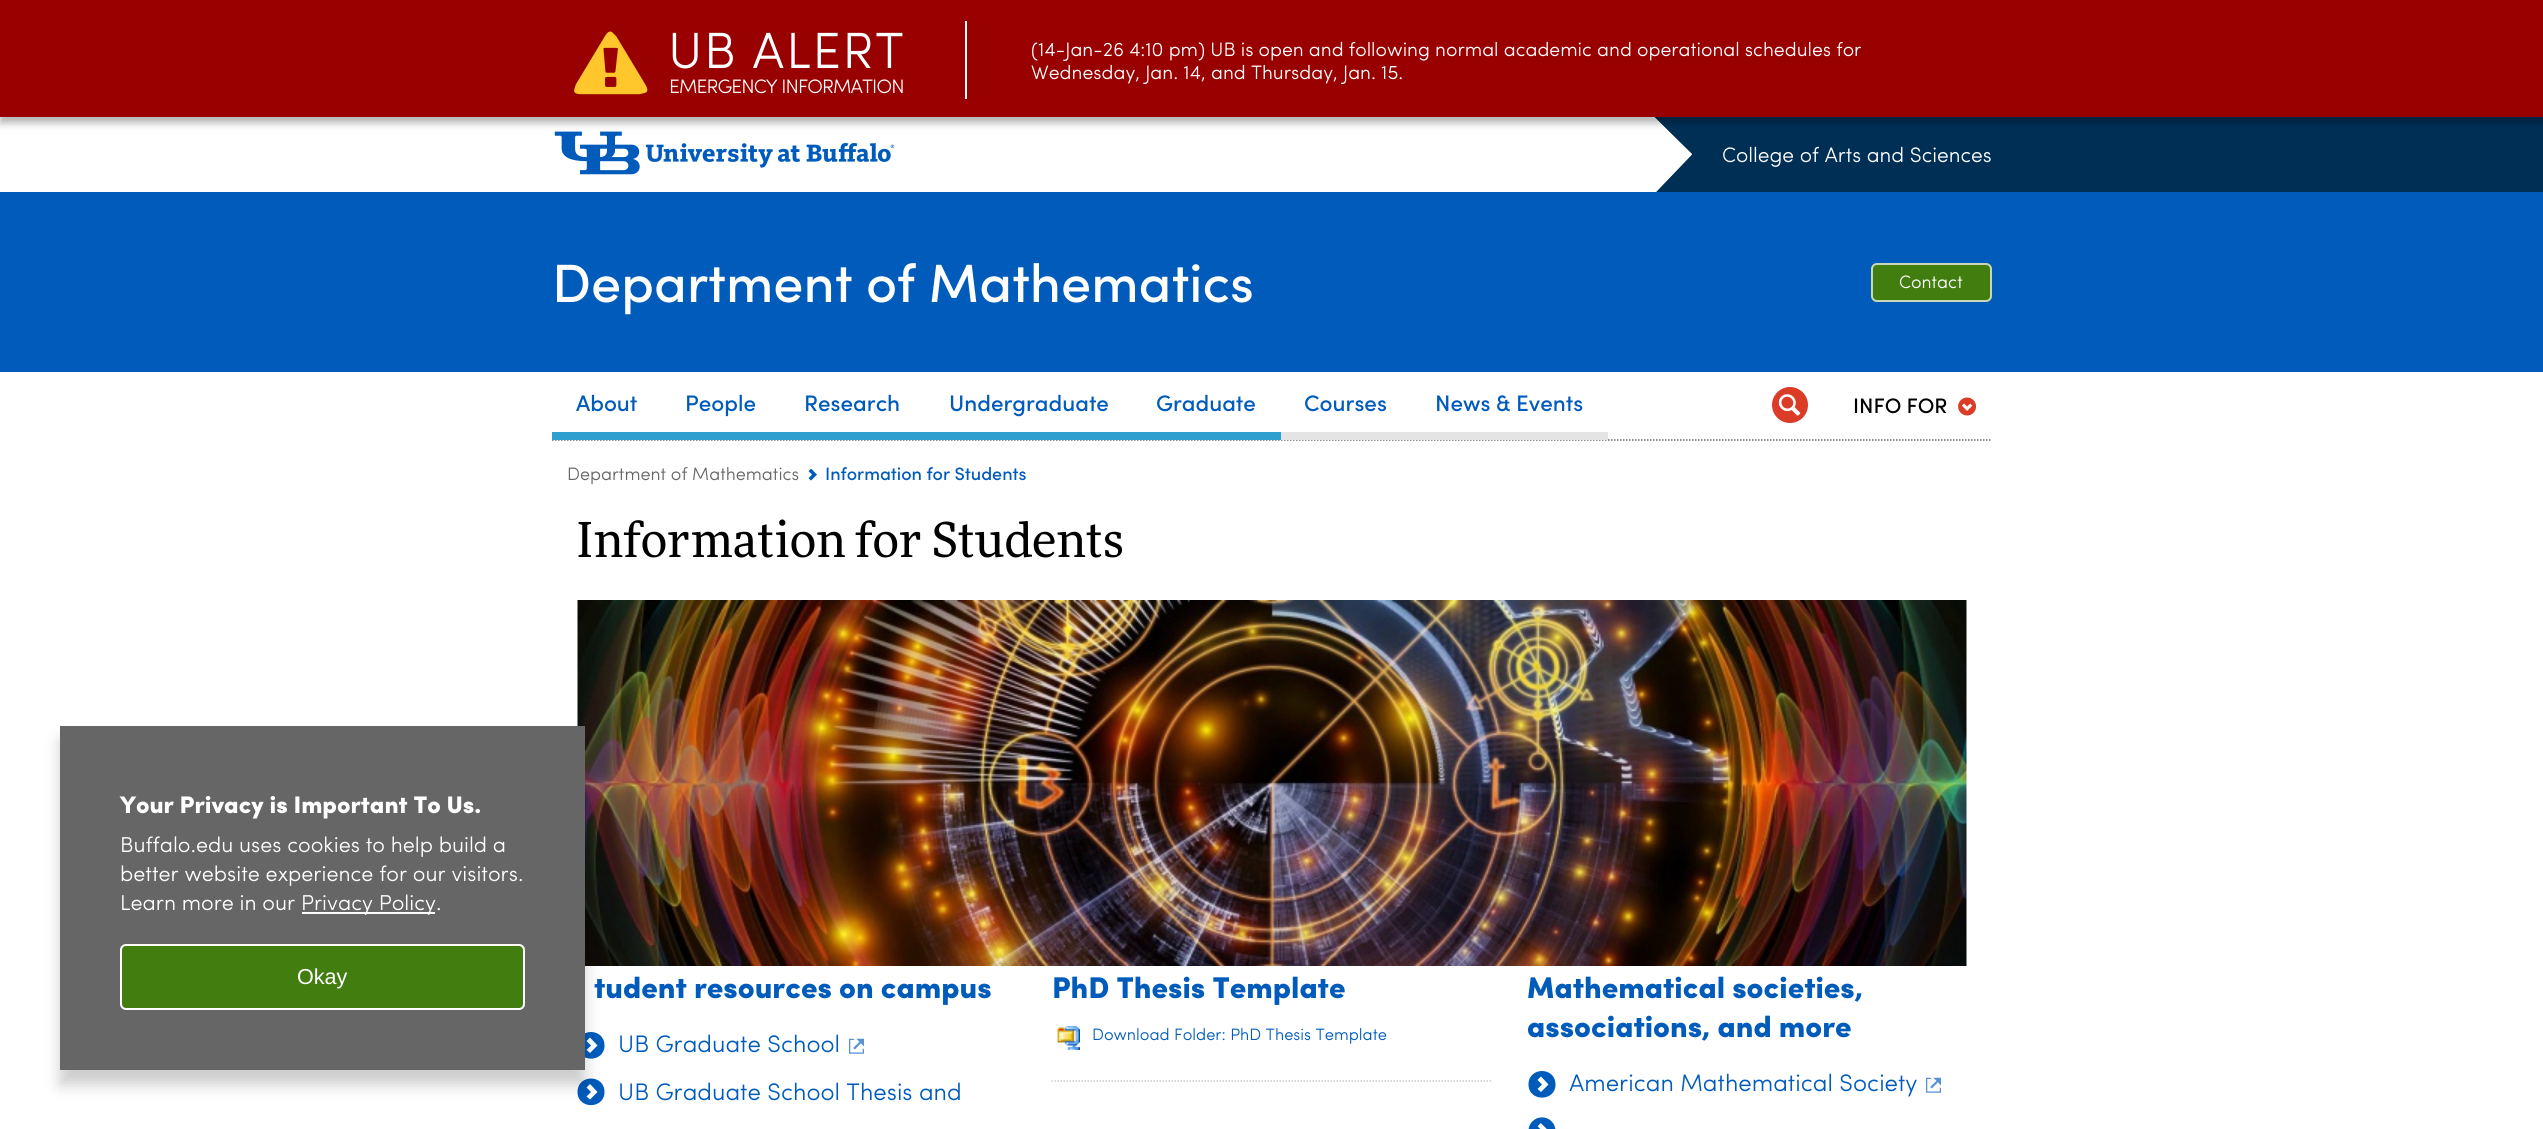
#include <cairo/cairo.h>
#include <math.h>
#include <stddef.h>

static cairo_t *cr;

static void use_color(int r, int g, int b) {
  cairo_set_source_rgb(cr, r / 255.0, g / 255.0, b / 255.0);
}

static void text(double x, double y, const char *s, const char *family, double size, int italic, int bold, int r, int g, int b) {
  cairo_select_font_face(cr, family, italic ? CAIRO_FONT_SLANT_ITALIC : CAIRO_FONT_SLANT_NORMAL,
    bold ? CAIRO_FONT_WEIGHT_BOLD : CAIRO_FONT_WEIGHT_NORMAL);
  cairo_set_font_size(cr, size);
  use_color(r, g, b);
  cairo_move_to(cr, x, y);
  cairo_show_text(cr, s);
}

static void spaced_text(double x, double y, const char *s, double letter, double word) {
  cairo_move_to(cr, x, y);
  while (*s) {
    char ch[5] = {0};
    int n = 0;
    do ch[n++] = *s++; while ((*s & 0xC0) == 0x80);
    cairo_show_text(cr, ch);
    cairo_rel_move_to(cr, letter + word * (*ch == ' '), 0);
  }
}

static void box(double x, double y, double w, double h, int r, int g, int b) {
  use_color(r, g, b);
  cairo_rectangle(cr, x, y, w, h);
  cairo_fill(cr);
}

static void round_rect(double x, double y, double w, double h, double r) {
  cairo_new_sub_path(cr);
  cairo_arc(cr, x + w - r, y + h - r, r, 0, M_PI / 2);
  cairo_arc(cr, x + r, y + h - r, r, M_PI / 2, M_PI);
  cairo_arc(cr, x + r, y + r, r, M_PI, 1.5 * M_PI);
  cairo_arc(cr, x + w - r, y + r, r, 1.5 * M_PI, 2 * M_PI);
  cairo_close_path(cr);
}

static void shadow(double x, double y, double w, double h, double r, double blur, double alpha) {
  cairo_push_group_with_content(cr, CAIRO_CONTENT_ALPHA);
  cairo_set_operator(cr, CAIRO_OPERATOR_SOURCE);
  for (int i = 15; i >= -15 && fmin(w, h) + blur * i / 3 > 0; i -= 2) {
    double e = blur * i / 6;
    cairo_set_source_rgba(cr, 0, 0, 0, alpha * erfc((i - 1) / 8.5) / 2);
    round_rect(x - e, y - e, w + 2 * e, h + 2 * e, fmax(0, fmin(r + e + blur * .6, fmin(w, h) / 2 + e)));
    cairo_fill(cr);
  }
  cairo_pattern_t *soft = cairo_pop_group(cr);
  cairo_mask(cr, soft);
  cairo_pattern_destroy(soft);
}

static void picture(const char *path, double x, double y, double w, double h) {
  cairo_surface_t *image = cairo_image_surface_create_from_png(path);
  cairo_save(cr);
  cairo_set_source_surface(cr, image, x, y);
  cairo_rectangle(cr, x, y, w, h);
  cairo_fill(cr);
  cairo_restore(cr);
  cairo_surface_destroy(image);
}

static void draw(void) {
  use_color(255, 255, 255);
  cairo_paint(cr);
  picture("img_02.png", 554, 131, 341, 44);
  use_color(0, 47, 86);
  cairo_new_path(cr);
  cairo_move_to(cr, 1654.5, 117);
  cairo_line_to(cr, 1692, 117);
  cairo_line_to(cr, 1692, 154.5);
  cairo_close_path(cr);
  cairo_fill(cr);
  box(0, 192, 2543, 180, 0, 91, 187);
  use_color(0, 47, 86);
  cairo_new_path(cr);
  cairo_move_to(cr, 1692, 193.5);
  cairo_line_to(cr, 1654.5, 193.5);
  cairo_line_to(cr, 1692, 154.5);
  cairo_close_path(cr);
  cairo_fill(cr);
  use_color(255, 255, 255);
  cairo_new_path(cr);
  cairo_move_to(cr, 1654, 194);
  cairo_line_to(cr, 1654, 117);
  cairo_line_to(cr, 1692, 154);
  cairo_close_path(cr);
  cairo_fill(cr);
  box(1692, 117, 851, 75, 0, 47, 86);
  use_color(0, 0, 0);
  shadow(0, 6, 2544, 117, 0, 4, 0.3);
  box(0, 0, 2543, 117, 153, 0, 0);
  picture("img_01.png", 574, 31, 74, 64);
  box(965, 21, 2, 78, 255, 255, 255);
  picture("img_06.png", 577, 600, 1390, 366);
  use_color(0, 91, 187);
  cairo_new_path(cr);
  cairo_move_to(cr, 597.5, 1045.5);
  cairo_line_to(cr, 590, 1053);
  cairo_line_to(cr, 586.5, 1050);
  cairo_line_to(cr, 591, 1045.5);
  cairo_line_to(cr, 586.5, 1041);
  cairo_line_to(cr, 590, 1037.5);
  cairo_close_path(cr);
  cairo_move_to(cr, 604.5, 1045.5);
  cairo_curve_to(cr, 604.5, 1027.5, 577.5, 1027.5, 577.5, 1045.5);
  cairo_curve_to(cr, 577.5, 1063, 604.5, 1063, 604.5, 1045.5);
  cairo_close_path(cr);
  cairo_fill(cr);
  cairo_new_path(cr);
  cairo_move_to(cr, 597.5, 1092);
  cairo_line_to(cr, 590, 1099.5);
  cairo_line_to(cr, 586.5, 1096.5);
  cairo_line_to(cr, 591, 1092);
  cairo_line_to(cr, 586.5, 1087.5);
  cairo_line_to(cr, 590, 1084);
  cairo_close_path(cr);
  cairo_move_to(cr, 604.5, 1092);
  cairo_curve_to(cr, 604.5, 1074, 577.5, 1074, 577.5, 1092);
  cairo_curve_to(cr, 577.5, 1109.5, 604.5, 1109.5, 604.5, 1092);
  cairo_close_path(cr);
  cairo_fill(cr);
  use_color(0, 0, 0);
  shadow(60, 741, 525, 344, 0, 7.5, 0.2);
  box(60, 726, 525, 344, 102, 102, 102);
  box(302, 912, 133, 2, 255, 255, 255);
  use_color(66, 125, 16);
  round_rect(121, 945, 403, 64, 5);
  cairo_fill_preserve(cr);
  use_color(255, 255, 255);
  cairo_stroke(cr);
  box(1654, 192, 38, 2, 0, 91, 187);
  use_color(66, 125, 16);
  round_rect(1871, 263, 121, 39, 6);
  cairo_fill(cr);
  round_rect(1872, 264, 119, 37, 5);
  cairo_set_source_rgba(cr, 1, 1, 1, 0.7);
  cairo_stroke(cr);
  cairo_new_path(cr);
  cairo_move_to(cr, 552, 440);
  cairo_line_to(cr, 1992, 440);
  use_color(102, 102, 102);
  cairo_set_line_width(cr, 1.5);
  cairo_set_dash(cr, (double[]){1.5, 1.5}, 2, 0);
  cairo_stroke(cr);
  box(552, 432, 729, 8, 47, 159, 208);
  box(1281, 432, 327, 8, 228, 228, 228);
  use_color(218, 60, 40);
  cairo_arc(cr, 1790, 405, 18, 0, 2 * M_PI);
  cairo_fill(cr);
  picture("img_03.png", 1778, 394, 23, 22);
  picture("img_04.png", 1958, 397, 19, 19);
  picture("img_05.png", 808, 468, 9, 13);
  picture("img_07.png", 849, 1038, 15, 16);
  picture("img_08.png", 1057, 1026, 23, 24);
  cairo_new_path(cr);
  cairo_move_to(cr, 1051.5, 1081);
  cairo_line_to(cr, 1492.5, 1081);
  use_color(204, 204, 204);
  cairo_stroke(cr);
  use_color(0, 91, 187);
  cairo_new_path(cr);
  cairo_move_to(cr, 1548.5, 1084.5);
  cairo_line_to(cr, 1541, 1092);
  cairo_line_to(cr, 1537.5, 1089);
  cairo_line_to(cr, 1542, 1084.5);
  cairo_line_to(cr, 1537.5, 1080);
  cairo_line_to(cr, 1541, 1076.5);
  cairo_close_path(cr);
  cairo_move_to(cr, 1555.5, 1084.5);
  cairo_curve_to(cr, 1555.5, 1066.5, 1528.5, 1066.5, 1528.5, 1084.5);
  cairo_curve_to(cr, 1528.5, 1102, 1555.5, 1102, 1555.5, 1084.5);
  cairo_close_path(cr);
  cairo_fill(cr);
  picture("img_07.png", 1926, 1077, 15, 16);
  picture("img_09.png", 1528, 1117, 28, 12);
  cairo_select_font_face(cr, "Sofia", CAIRO_FONT_SLANT_NORMAL, CAIRO_FONT_WEIGHT_NORMAL);
  cairo_set_font_size(cr, 51);
  use_color(255, 255, 255);
  spaced_text(668, 68, "UB ALERT", 1.5, 0);
  cairo_set_font_size(cr, 19.5);
  spaced_text(669, 93, "EMERGENCY INFORMATION", -0.9, 0);
  text(1031, 56, "(14-Jan-26 4:10 pm) UB is open and following normal academic and operational schedules for", "Sofia", 19.5, 0, 0, 255, 255, 255);
  text(1031, 79, "Wednesday, Jan. 14, and Thursday, Jan. 15.", "Sofia", 19.5, 0, 0, 255, 255, 255);
  text(120, 813, "Your Privacy is Important To Us.", "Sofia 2", 24, 0, 0, 255, 255, 255);
  text(120, 852, "Buffalo.edu uses cookies to help build a", "Sofia", 21.6, 0, 0, 255, 255, 255);
  text(120, 881, "better website experience for our visitors.", "Sofia", 21.6, 0, 0, 255, 255, 255);
  text(120, 910, "Learn more in our", "Sofia", 21.6, 0, 0, 255, 255, 255);
  text(301, 910, "Privacy Policy.", "Sofia", 21.6, 0, 0, 255, 255, 255);
  text(297, 984, "Okay", "Liberation Sans", 21.6, 0, 0, 255, 255, 255);
  text(1722, 162, "College of Arts and Sciences", "Sofia", 21, 0, 0, 255, 255, 255);
  text(552, 302, "Department of Mathematics", "Sofia Medium", 54, 0, 0, 255, 255, 255);
  text(1899, 288, "Contact", "Sofia", 18, 0, 0, 255, 255, 255);
  text(576, 411, "About", "Sofia Medium", 22.5, 0, 0, 0, 91, 187);
  text(685, 411, "People", "Sofia Medium", 22.5, 0, 0, 0, 91, 187);
  text(804, 411, "Research", "Sofia Medium", 22.5, 0, 0, 0, 91, 187);
  text(949, 411, "Undergraduate", "Sofia Medium", 22.5, 0, 0, 0, 91, 187);
  text(1156, 411, "Graduate", "Sofia Medium", 22.5, 0, 0, 0, 91, 187);
  text(1304, 411, "Courses", "Sofia Medium", 22.5, 0, 0, 0, 91, 187);
  text(1435, 411, "News & Events", "Sofia Medium", 22.5, 0, 0, 0, 91, 187);
  text(1853, 413, "INFO FOR", "Sofia Medium", 21, 0, 0, 0, 0, 0);
  text(567, 480, "Department of Mathematics", "Sofia", 18, 0, 0, 102, 102, 102);
  text(825, 480, "Information for Students", "Sofia Medium", 18, 0, 0, 0, 91, 187);
  text(576, 557, "Information for Students", "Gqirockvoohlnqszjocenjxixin", 48, 0, 0, 0, 0, 0);
  text(594, 998, "tudent resources on campus", "Sofia 2", 30, 0, 0, 0, 91, 187);
  text(618, 1052, "UB Graduate School", "Sofia", 24, 0, 0, 0, 91, 187);
  text(618, 1100, "UB Graduate School Thesis and", "Sofia", 24, 0, 0, 0, 91, 187);
  text(1052, 998, "PhD Thesis Template", "Sofia 2", 30, 0, 0, 0, 91, 187);
  text(1092, 1040, "Download Folder: PhD Thesis Template", "Sofia", 16.5, 0, 0, 0, 91, 187);
  text(1527, 998, "Mathematical societies,", "Sofia 2", 30, 0, 0, 0, 91, 187);
  text(1527, 1037, "associations, and more", "Sofia 2", 30, 0, 0, 0, 91, 187);
  text(1569, 1091, "American Mathematical Society", "Sofia", 24, 0, 0, 0, 91, 187);
}

int main(void) {
  cairo_surface_t *surface = cairo_image_surface_create(CAIRO_FORMAT_RGB24, 2543, 1129);
  cr = cairo_create(surface);
  cairo_font_options_t *options = cairo_font_options_create();
  cairo_font_options_set_hint_metrics(options, CAIRO_HINT_METRICS_OFF);
  cairo_font_options_set_hint_style(options, CAIRO_HINT_STYLE_NONE);
  cairo_set_font_options(cr, options);
  cairo_set_miter_limit(cr, 4);
  draw();
  cairo_surface_write_to_png(surface, "out.png");
  cairo_font_options_destroy(options);
  cairo_destroy(cr);
  cairo_surface_destroy(surface);
  return 0;
}
